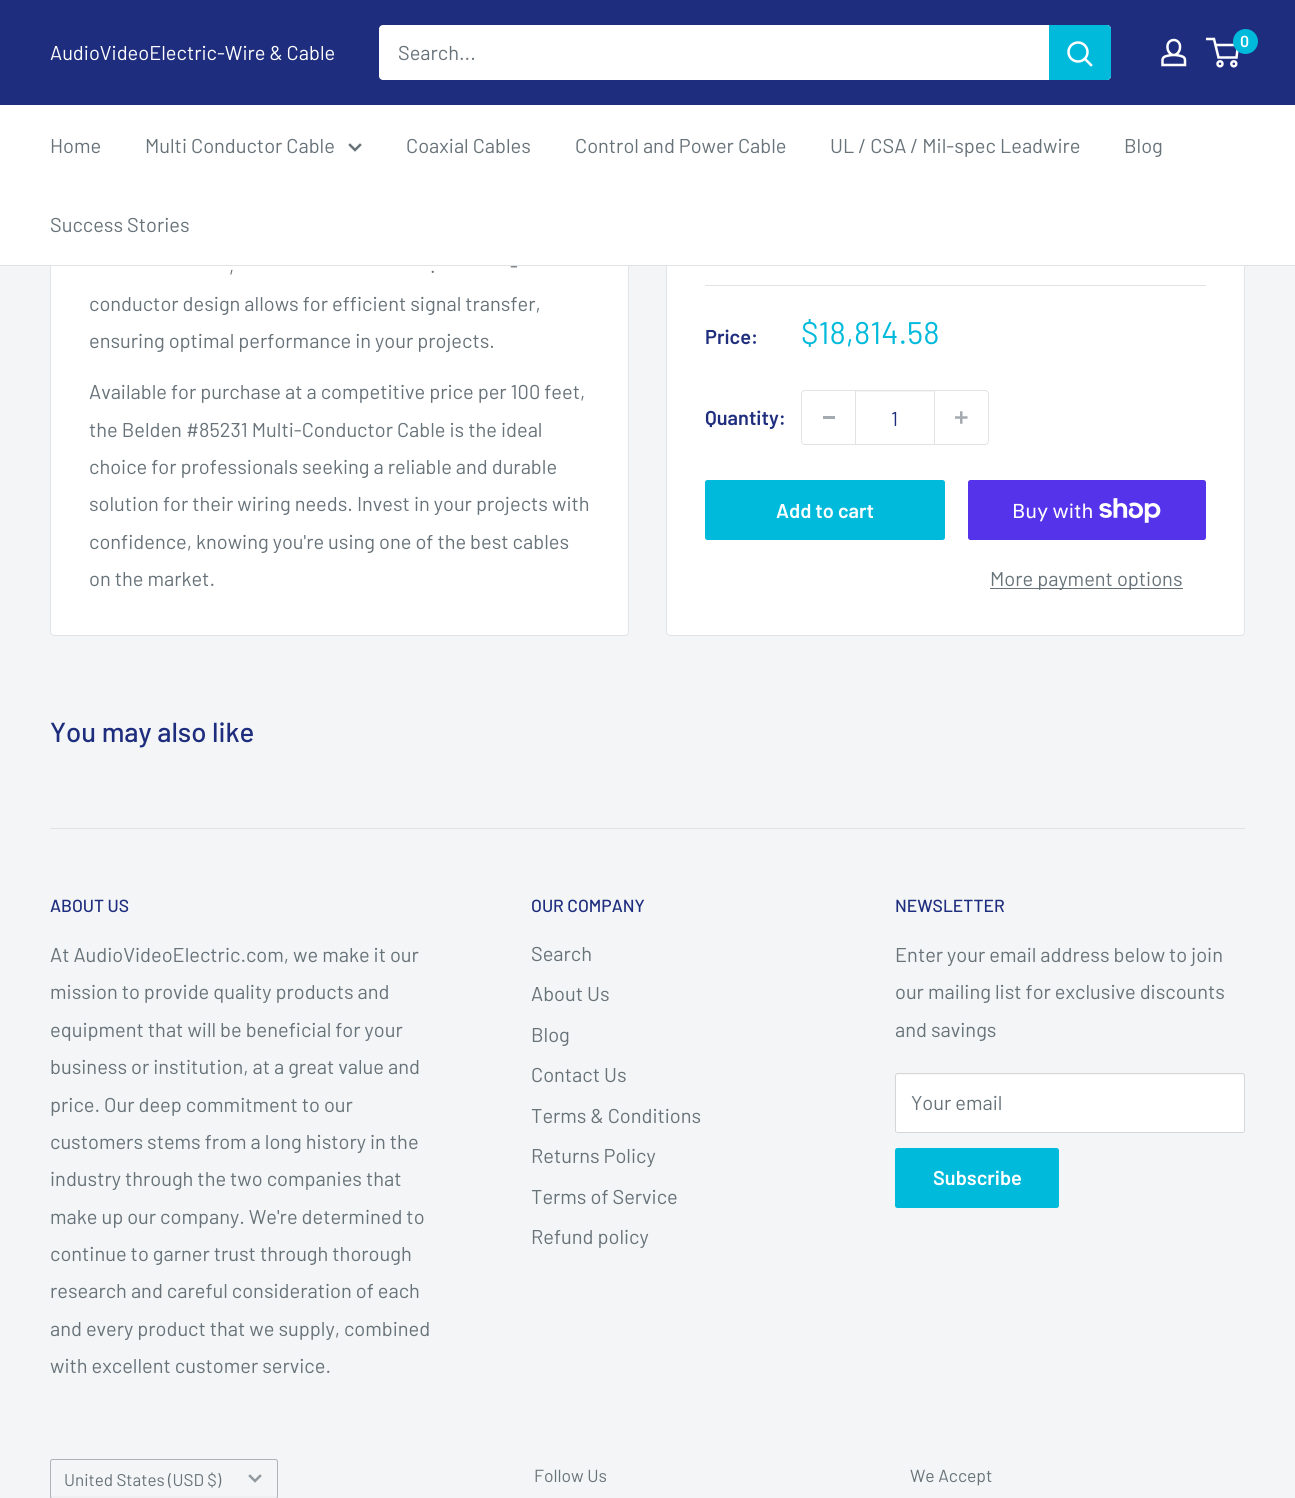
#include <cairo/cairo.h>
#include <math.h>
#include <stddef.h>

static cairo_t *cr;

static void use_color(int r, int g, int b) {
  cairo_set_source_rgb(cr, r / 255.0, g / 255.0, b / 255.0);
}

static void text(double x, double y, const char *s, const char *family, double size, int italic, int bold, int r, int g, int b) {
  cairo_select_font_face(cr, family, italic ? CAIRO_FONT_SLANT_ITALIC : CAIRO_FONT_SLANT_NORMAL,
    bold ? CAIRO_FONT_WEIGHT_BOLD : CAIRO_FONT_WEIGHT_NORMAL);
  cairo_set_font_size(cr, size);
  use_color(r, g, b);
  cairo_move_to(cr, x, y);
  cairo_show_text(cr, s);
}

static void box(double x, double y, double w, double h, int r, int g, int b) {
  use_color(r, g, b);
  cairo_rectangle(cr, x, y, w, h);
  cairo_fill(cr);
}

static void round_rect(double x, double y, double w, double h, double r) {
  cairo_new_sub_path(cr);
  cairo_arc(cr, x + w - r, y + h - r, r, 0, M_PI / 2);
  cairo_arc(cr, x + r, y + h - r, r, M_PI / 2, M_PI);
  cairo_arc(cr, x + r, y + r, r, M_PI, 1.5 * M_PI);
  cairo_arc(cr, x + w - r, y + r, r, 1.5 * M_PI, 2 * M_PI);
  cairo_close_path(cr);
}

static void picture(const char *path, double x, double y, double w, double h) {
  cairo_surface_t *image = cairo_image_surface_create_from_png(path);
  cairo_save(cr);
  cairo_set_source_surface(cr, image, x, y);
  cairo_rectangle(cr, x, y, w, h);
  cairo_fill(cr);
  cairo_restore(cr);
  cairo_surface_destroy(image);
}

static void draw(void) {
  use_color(243, 245, 246);
  cairo_paint(cr);
  use_color(255, 255, 255);
  round_rect(50.5, -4.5, 578, 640, 3.5);
  cairo_fill_preserve(cr);
  use_color(225, 227, 228);
  cairo_set_line_width(cr, 1);
  cairo_stroke(cr);
  use_color(255, 255, 255);
  round_rect(666.5, -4.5, 578, 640, 3.5);
  cairo_fill_preserve(cr);
  use_color(225, 227, 228);
  cairo_stroke(cr);
  box(0, 0, 1295, 105, 30, 45, 125);
  picture("img_01.png", 1161, 38, 26, 29);
  cairo_arc(cr, 1220, 63.8, 2.5, 0, 2 * M_PI);
  use_color(255, 255, 255);
  cairo_set_line_width(cr, 2.5);
  cairo_stroke(cr);
  cairo_arc(cr, 1233.8, 63.8, 2.5, 0, 2 * M_PI);
  cairo_stroke(cr);
  cairo_new_path(cr);
  cairo_move_to(cr, 1215.5, 45);
  cairo_line_to(cr, 1238, 45);
  cairo_line_to(cr, 1236.5, 57.5);
  cairo_line_to(cr, 1218.5, 57.5);
  cairo_line_to(cr, 1214, 39);
  cairo_line_to(cr, 1206, 39);
  cairo_stroke(cr);
  use_color(0, 186, 219);
  cairo_arc(cr, 1245.5, 41.5, 12.5, 0, 2 * M_PI);
  cairo_fill(cr);
  use_color(255, 255, 255);
  round_rect(379, 25, 732, 55, 4);
  cairo_fill(cr);
  use_color(0, 186, 219);
  cairo_new_path(cr);
  cairo_move_to(cr, 1049, 25);
  cairo_line_to(cr, 1107, 25);
  cairo_curve_to(cr, 1109, 25, 1111, 27, 1111, 29);
  cairo_line_to(cr, 1111, 76);
  cairo_curve_to(cr, 1111, 78, 1109, 80, 1107, 80);
  cairo_line_to(cr, 1049, 80);
  cairo_close_path(cr);
  cairo_fill(cr);
  cairo_new_path(cr);
  cairo_move_to(cr, 1091, 65);
  cairo_line_to(cr, 1085, 59);
  use_color(255, 255, 255);
  cairo_set_line_cap(cr, CAIRO_LINE_CAP_SQUARE);
  cairo_stroke(cr);
  cairo_arc(cr, 1078, 52, 9.5, 0, 2 * M_PI);
  cairo_set_line_cap(cr, CAIRO_LINE_CAP_BUTT);
  cairo_stroke(cr);
  box(0, 105, 1295, 160, 255, 255, 255);
  box(0, 265, 1295, 1, 225, 227, 228);
  cairo_new_path(cr);
  cairo_move_to(cr, 360, 145);
  cairo_line_to(cr, 355, 150);
  cairo_line_to(cr, 350, 145);
  use_color(103, 114, 121);
  cairo_set_line_cap(cr, CAIRO_LINE_CAP_SQUARE);
  cairo_stroke(cr);
  box(705, 285, 501, 1, 225, 227, 228);
  round_rect(801.5, 390.5, 187, 54, 3.5);
  cairo_set_line_width(cr, 1);
  cairo_set_line_cap(cr, CAIRO_LINE_CAP_BUTT);
  cairo_stroke(cr);
  box(823, 416, 12, 3, 164, 170, 175);
  box(856, 391, 78, 1, 243, 244, 244);
  box(934, 391, 1, 53, 225, 227, 228);
  box(855, 391, 1, 53, 225, 227, 228);
  picture("img_02.png", 955, 411, 13, 13);
  use_color(0, 186, 219);
  round_rect(705, 480, 240, 60, 2.5);
  cairo_fill(cr);
  use_color(84, 51, 235);
  round_rect(968, 480, 238, 60, 2.5);
  cairo_fill(cr);
  picture("img_03.png", 1099, 498, 62, 25);
  box(990, 588, 193, 1, 103, 114, 121);
  box(50, 828, 1195, 1, 225, 227, 228);
  use_color(255, 255, 255);
  round_rect(895, 1073, 350, 60, 2.5);
  cairo_fill(cr);
  use_color(248, 248, 248);
  cairo_new_path(cr);
  cairo_move_to(cr, 898, 1075);
  cairo_line_to(cr, 1242, 1075);
  cairo_curve_to(cr, 1243, 1075, 1244, 1076, 1244, 1076);
  cairo_line_to(cr, 1244, 1075);
  cairo_line_to(cr, 1243, 1074);
  cairo_line_to(cr, 896, 1074);
  cairo_line_to(cr, 896, 1076);
  cairo_close_path(cr);
  cairo_fill(cr);
  round_rect(895.5, 1073.5, 349, 59, 2);
  use_color(212, 214, 216);
  cairo_stroke(cr);
  use_color(0, 186, 219);
  round_rect(895, 1148, 164, 60, 2.5);
  cairo_fill(cr);
  use_color(238, 240, 241);
  cairo_new_path(cr);
  cairo_move_to(cr, 51, 1495);
  cairo_line_to(cr, 51, 1497);
  cairo_curve_to(cr, 51, 1498, 51, 1498, 52, 1498);
  cairo_line_to(cr, 275, 1498);
  cairo_curve_to(cr, 276, 1498, 276, 1498, 276, 1497);
  cairo_line_to(cr, 276, 1495);
  cairo_curve_to(cr, 276, 1496, 276, 1496, 275, 1496);
  cairo_line_to(cr, 52, 1496);
  cairo_close_path(cr);
  cairo_fill(cr);
  round_rect(50.5, 1459.5, 227, 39, 2);
  use_color(173, 180, 184);
  cairo_stroke(cr);
  cairo_new_path(cr);
  cairo_move_to(cr, 260, 1476);
  cairo_line_to(cr, 255, 1481);
  cairo_line_to(cr, 250, 1476);
  use_color(145, 153, 159);
  cairo_set_line_width(cr, 2.5);
  cairo_set_line_cap(cr, CAIRO_LINE_CAP_SQUARE);
  cairo_stroke(cr);
  text(1240, 47, "0", "Barlow SemiBold", 16, 0, 0, 255, 255, 255);
  text(50, 60, "AudioVideoElectric-Wire & Cable", "Barlow", 20, 0, 0, 255, 255, 255);
  text(398, 60, "Search...", "Barlow", 20, 0, 0, 103, 114, 121);
  text(50, 153, "Home", "Barlow", 20, 0, 0, 103, 114, 121);
  text(145, 153, "Multi Conductor Cable", "Barlow", 20, 0, 0, 103, 114, 121);
  text(406, 153, "Coaxial Cables", "Barlow", 20, 0, 0, 103, 114, 121);
  text(575, 153, "Control and Power Cable", "Barlow", 20, 0, 0, 103, 114, 121);
  text(830, 153, "UL / CSA / Mil-spec Leadwire", "Barlow", 20, 0, 0, 103, 114, 121);
  text(1124, 153, "Blog", "Barlow", 20, 0, 0, 103, 114, 121);
  text(50, 232, "Success Stories", "Barlow", 20, 0, 0, 103, 114, 121);
  text(510, 273, "-", "Barlow", 20, 0, 0, 103, 114, 121);
  text(229, 273, ",", "Barlow", 20, 0, 0, 103, 114, 121);
  text(430, 273, ".", "Barlow", 20, 0, 0, 103, 114, 121);
  text(89, 311, "conductor design allows for efficient signal transfer,", "Barlow", 20, 0, 0, 103, 114, 121);
  text(89, 348, "ensuring optimal performance in your projects.", "Barlow", 20, 0, 0, 103, 114, 121);
  text(89, 399, "Available for purchase at a competitive price per 100 feet,", "Barlow", 20, 0, 0, 103, 114, 121);
  text(89, 437, "the Belden #85231 Multi-Conductor Cable is the ideal", "Barlow", 20, 0, 0, 103, 114, 121);
  text(89, 474, "choice for professionals seeking a reliable and durable", "Barlow", 20, 0, 0, 103, 114, 121);
  text(89, 511, "solution for their wiring needs. Invest in your projects with", "Barlow", 20, 0, 0, 103, 114, 121);
  text(89, 549, "confidence, knowing you're using one of the best cables", "Barlow", 20, 0, 0, 103, 114, 121);
  text(89, 586, "on the market.", "Barlow", 20, 0, 0, 103, 114, 121);
  text(705, 344, "Price:", "Barlow SemiBold", 20, 0, 0, 30, 45, 125);
  text(801, 344, "$18,814.58", "Barlow", 31.25, 0, 0, 0, 186, 219);
  text(705, 425, "Quantity:", "Barlow SemiBold", 20, 0, 0, 30, 45, 125);
  text(891, 426, "1", "Barlow", 20, 0, 0, 30, 45, 125);
  text(776, 518, "Add to cart", "Barlow SemiBold", 20, 0, 0, 255, 255, 255);
  text(1012, 518, "Buy with", "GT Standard", 20, 0, 0, 255, 255, 255);
  text(990, 586, "More payment options", "Barlow", 20, 0, 0, 103, 114, 121);
  text(50, 742, "You may also like", "Barlow Medium", 27.5, 0, 0, 30, 45, 125);
  text(50, 912, "ABOUT US", "Barlow Medium", 17.5, 0, 0, 30, 45, 125);
  text(50, 962, "At AudioVideoElectric.com, we make it our", "Barlow", 20, 0, 0, 103, 114, 121);
  text(50, 999, "mission to provide quality products and", "Barlow", 20, 0, 0, 103, 114, 121);
  text(50, 1037, "equipment that will be beneficial for your", "Barlow", 20, 0, 0, 103, 114, 121);
  text(50, 1074, "business or institution, at a great value and", "Barlow", 20, 0, 0, 103, 114, 121);
  text(50, 1112, "price. Our deep commitment to our", "Barlow", 20, 0, 0, 103, 114, 121);
  text(50, 1149, "customers stems from a long history in the", "Barlow", 20, 0, 0, 103, 114, 121);
  text(50, 1186, "industry through the two companies that", "Barlow", 20, 0, 0, 103, 114, 121);
  text(50, 1224, "make up our company. We're determined to", "Barlow", 20, 0, 0, 103, 114, 121);
  text(50, 1261, "continue to garner trust through thorough", "Barlow", 20, 0, 0, 103, 114, 121);
  text(50, 1298, "research and careful consideration of each", "Barlow", 20, 0, 0, 103, 114, 121);
  text(50, 1336, "and every product that we supply, combined", "Barlow", 20, 0, 0, 103, 114, 121);
  text(50, 1373, "with excellent customer service.", "Barlow", 20, 0, 0, 103, 114, 121);
  text(531, 912, "OUR COMPANY", "Barlow Medium", 17.5, 0, 0, 30, 45, 125);
  text(531, 961, "Search", "Barlow", 20, 0, 0, 103, 114, 121);
  text(531, 1001, "About Us", "Barlow", 20, 0, 0, 103, 114, 121);
  text(531, 1042, "Blog", "Barlow", 20, 0, 0, 103, 114, 121);
  text(531, 1082, "Contact Us", "Barlow", 20, 0, 0, 103, 114, 121);
  text(531, 1123, "Terms & Conditions", "Barlow", 20, 0, 0, 103, 114, 121);
  text(531, 1163, "Returns Policy", "Barlow", 20, 0, 0, 103, 114, 121);
  text(531, 1204, "Terms of Service", "Barlow", 20, 0, 0, 103, 114, 121);
  text(531, 1244, "Refund policy", "Barlow", 20, 0, 0, 103, 114, 121);
  text(895, 912, "NEWSLETTER", "Barlow Medium", 17.5, 0, 0, 30, 45, 125);
  text(895, 962, "Enter your email address below to join", "Barlow", 20, 0, 0, 103, 114, 121);
  text(895, 999, "our mailing list for exclusive discounts", "Barlow", 20, 0, 0, 103, 114, 121);
  text(895, 1037, "and savings", "Barlow", 20, 0, 0, 103, 114, 121);
  text(911, 1110, "Your email", "Barlow", 20, 0, 0, 103, 114, 121);
  text(933, 1185, "Subscribe", "Barlow SemiBold", 20, 0, 0, 255, 255, 255);
  text(64, 1486, "United States (USD $)", "Barlow", 17, 0, 0, 103, 114, 121);
  text(534, 1482, "Follow Us", "Barlow", 17.5, 0, 0, 103, 114, 121);
  text(910, 1482, "We Accept", "Barlow", 17.5, 0, 0, 103, 114, 121);
}

int main(void) {
  cairo_surface_t *surface = cairo_image_surface_create(CAIRO_FORMAT_RGB24, 1295, 1498);
  cr = cairo_create(surface);
  cairo_font_options_t *options = cairo_font_options_create();
  cairo_font_options_set_hint_metrics(options, CAIRO_HINT_METRICS_OFF);
  cairo_font_options_set_hint_style(options, CAIRO_HINT_STYLE_NONE);
  cairo_set_font_options(cr, options);
  cairo_set_miter_limit(cr, 4);
  draw();
  cairo_surface_write_to_png(surface, "out.png");
  cairo_font_options_destroy(options);
  cairo_destroy(cr);
  cairo_surface_destroy(surface);
  return 0;
}
